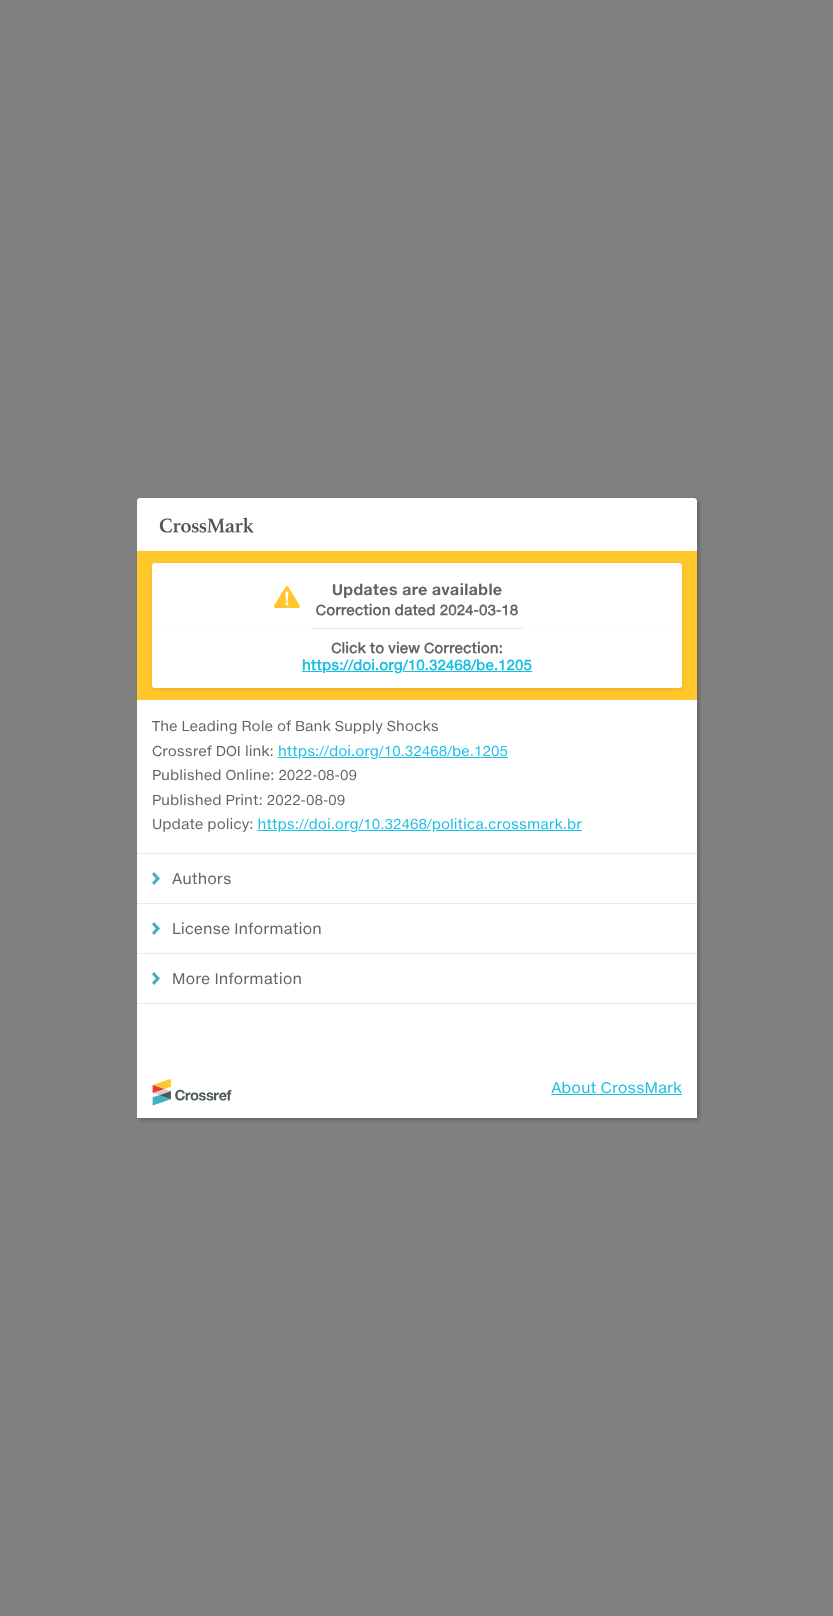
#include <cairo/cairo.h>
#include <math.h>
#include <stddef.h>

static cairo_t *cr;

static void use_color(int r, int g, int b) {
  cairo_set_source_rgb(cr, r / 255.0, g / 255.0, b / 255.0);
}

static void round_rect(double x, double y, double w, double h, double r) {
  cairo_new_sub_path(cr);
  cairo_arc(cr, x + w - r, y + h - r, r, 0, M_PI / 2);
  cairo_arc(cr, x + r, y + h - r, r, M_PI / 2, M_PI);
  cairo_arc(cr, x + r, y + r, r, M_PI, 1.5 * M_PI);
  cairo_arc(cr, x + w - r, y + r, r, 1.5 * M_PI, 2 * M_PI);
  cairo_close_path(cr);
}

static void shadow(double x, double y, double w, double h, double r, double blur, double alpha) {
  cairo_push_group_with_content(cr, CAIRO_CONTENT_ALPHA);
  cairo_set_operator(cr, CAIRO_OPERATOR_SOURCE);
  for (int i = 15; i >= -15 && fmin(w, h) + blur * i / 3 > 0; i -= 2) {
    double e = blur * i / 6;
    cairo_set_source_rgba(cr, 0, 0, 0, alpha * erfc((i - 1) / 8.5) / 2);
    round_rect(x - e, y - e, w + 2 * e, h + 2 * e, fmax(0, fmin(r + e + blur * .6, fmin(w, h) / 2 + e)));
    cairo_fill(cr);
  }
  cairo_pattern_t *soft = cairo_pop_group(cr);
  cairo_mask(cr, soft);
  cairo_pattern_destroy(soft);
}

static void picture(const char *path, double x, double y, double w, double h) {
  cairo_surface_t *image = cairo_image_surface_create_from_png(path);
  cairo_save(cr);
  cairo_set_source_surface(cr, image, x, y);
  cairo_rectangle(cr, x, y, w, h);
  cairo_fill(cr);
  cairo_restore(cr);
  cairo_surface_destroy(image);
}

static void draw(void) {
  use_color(128, 128, 128);
  cairo_paint(cr);
  use_color(0, 0, 0);
  shadow(139, 500, 560, 620, 3, 2, 0.25);
  use_color(255, 255, 255);
  round_rect(137, 498, 560, 620, 3);
  cairo_fill(cr);
  picture("img_01.png", 159, 517, 95, 16);
  picture("img_02.png", 137, 551, 560, 567);
}

int main(void) {
  cairo_surface_t *surface = cairo_image_surface_create(CAIRO_FORMAT_RGB24, 833, 1616);
  cr = cairo_create(surface);
  cairo_font_options_t *options = cairo_font_options_create();
  cairo_font_options_set_hint_metrics(options, CAIRO_HINT_METRICS_OFF);
  cairo_font_options_set_hint_style(options, CAIRO_HINT_STYLE_NONE);
  cairo_set_font_options(cr, options);
  cairo_set_miter_limit(cr, 4);
  draw();
  cairo_surface_write_to_png(surface, "out.png");
  cairo_font_options_destroy(options);
  cairo_destroy(cr);
  cairo_surface_destroy(surface);
  return 0;
}
